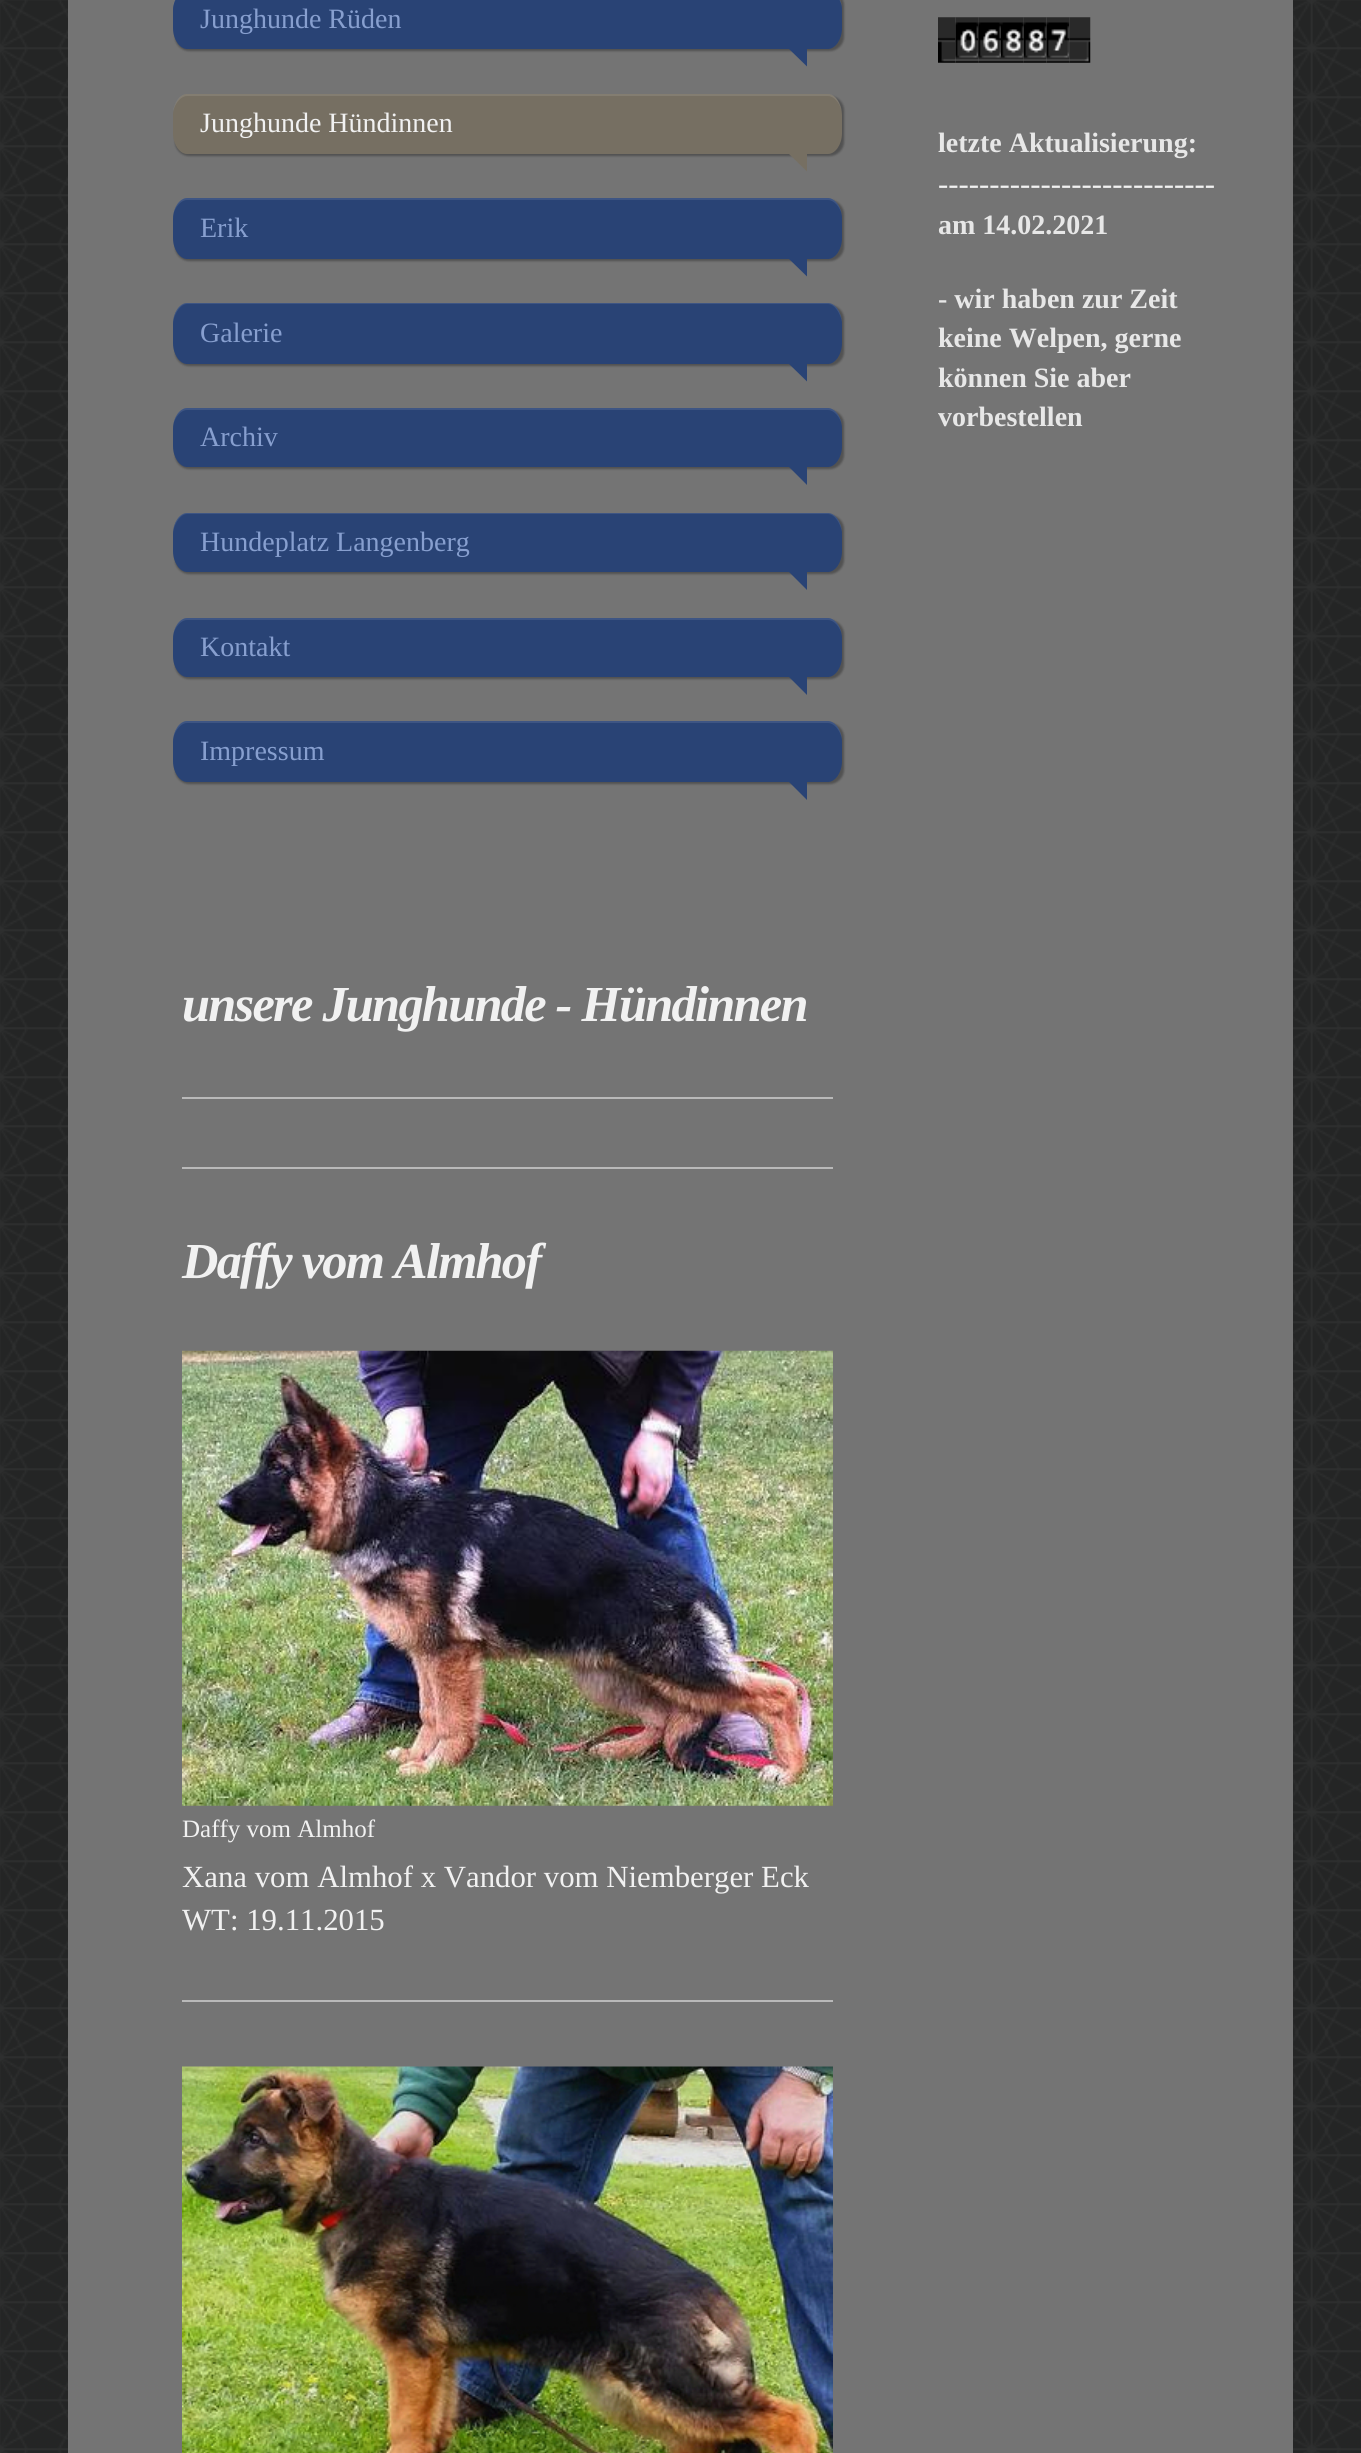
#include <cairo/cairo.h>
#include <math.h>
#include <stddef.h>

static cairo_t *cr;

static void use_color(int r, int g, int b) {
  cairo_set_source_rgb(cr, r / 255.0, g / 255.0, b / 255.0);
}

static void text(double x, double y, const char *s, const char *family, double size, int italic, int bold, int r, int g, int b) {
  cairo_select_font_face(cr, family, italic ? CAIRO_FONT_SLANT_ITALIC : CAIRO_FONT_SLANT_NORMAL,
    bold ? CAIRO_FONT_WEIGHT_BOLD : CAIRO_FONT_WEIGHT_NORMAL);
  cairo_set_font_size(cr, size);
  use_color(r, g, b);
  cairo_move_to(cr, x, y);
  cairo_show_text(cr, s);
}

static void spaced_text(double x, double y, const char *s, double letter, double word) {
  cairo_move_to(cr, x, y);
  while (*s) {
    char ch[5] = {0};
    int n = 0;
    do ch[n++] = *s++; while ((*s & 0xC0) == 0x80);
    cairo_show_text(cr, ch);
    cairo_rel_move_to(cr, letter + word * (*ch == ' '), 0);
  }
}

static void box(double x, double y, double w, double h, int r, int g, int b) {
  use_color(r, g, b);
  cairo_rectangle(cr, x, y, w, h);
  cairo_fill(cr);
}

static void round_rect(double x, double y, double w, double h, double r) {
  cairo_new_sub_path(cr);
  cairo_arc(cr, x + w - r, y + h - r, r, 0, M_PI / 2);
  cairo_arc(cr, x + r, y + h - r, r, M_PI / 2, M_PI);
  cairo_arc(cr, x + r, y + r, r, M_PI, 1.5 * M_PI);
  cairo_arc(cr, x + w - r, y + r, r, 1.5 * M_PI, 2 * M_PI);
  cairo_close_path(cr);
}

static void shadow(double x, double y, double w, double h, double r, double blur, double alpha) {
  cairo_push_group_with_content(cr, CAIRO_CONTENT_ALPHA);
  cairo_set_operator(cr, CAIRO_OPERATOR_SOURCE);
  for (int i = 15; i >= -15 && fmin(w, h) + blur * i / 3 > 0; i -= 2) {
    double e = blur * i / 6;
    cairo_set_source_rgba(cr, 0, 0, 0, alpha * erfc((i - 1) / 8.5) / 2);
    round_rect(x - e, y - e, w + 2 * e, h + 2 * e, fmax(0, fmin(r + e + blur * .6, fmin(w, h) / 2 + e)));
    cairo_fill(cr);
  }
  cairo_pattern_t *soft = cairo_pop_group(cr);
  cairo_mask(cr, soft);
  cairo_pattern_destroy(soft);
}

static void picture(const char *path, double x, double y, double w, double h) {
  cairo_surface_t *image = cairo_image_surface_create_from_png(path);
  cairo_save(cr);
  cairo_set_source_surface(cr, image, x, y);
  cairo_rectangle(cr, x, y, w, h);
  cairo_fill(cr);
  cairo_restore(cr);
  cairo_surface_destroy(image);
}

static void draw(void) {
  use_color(36, 37, 37);
  cairo_paint(cr);
  picture("img_01.png", 0, 0, 1361, 2453);
  box(68, 0, 1225, 2453, 116, 116, 116);
  use_color(0, 0, 0);
  shadow(175, -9, 669, 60, 14, 1, 0.3);
  use_color(41, 67, 117);
  cairo_new_path(cr);
  cairo_move_to(cr, 187, -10);
  cairo_line_to(cr, 828, -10);
  cairo_curve_to(cr, 835, -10, 842, -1, 842, 10);
  cairo_line_to(cr, 842, 28);
  cairo_curve_to(cr, 842, 40, 835, 49, 828, 49);
  cairo_line_to(cr, 187, 49);
  cairo_curve_to(cr, 180, 49, 173, 40, 173, 28);
  cairo_line_to(cr, 173, 10);
  cairo_curve_to(cr, 173, -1, 180, -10, 187, -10);
  cairo_close_path(cr);
  cairo_fill(cr);
  cairo_set_source_rgba(cr, 1, 1, 1, 0.1);
  cairo_new_path(cr);
  cairo_move_to(cr, 187, -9);
  cairo_line_to(cr, 828, -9);
  cairo_curve_to(cr, 834, -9, 840, -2, 842, 7);
  cairo_curve_to(cr, 841, -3, 835, -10, 828, -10);
  cairo_line_to(cr, 187, -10);
  cairo_curve_to(cr, 180, -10, 174, -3, 173, 7);
  cairo_curve_to(cr, 175, -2, 181, -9, 187, -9);
  cairo_close_path(cr);
  cairo_fill(cr);
  use_color(41, 67, 117);
  cairo_new_path(cr);
  cairo_move_to(cr, 789, 49);
  cairo_line_to(cr, 807, 49);
  cairo_line_to(cr, 807, 66.5);
  cairo_close_path(cr);
  cairo_fill(cr);
  use_color(0, 0, 0);
  shadow(175, 96, 669, 60, 14, 1, 0.3);
  use_color(118, 111, 98);
  cairo_new_path(cr);
  cairo_move_to(cr, 187, 94);
  cairo_line_to(cr, 828, 94);
  cairo_curve_to(cr, 835, 94, 842, 104, 842, 116);
  cairo_line_to(cr, 842, 133);
  cairo_curve_to(cr, 842, 145, 835, 154, 828, 154);
  cairo_line_to(cr, 187, 154);
  cairo_curve_to(cr, 180, 154, 173, 145, 173, 133);
  cairo_line_to(cr, 173, 116);
  cairo_curve_to(cr, 173, 104, 180, 94, 187, 94);
  cairo_close_path(cr);
  cairo_fill(cr);
  cairo_set_source_rgba(cr, 1, 1, 1, 0.1);
  cairo_new_path(cr);
  cairo_move_to(cr, 187, 96);
  cairo_line_to(cr, 828, 96);
  cairo_curve_to(cr, 834, 96, 840, 103, 842, 112);
  cairo_curve_to(cr, 841, 102, 835, 94, 828, 94);
  cairo_line_to(cr, 187, 94);
  cairo_curve_to(cr, 180, 94, 174, 102, 173, 112);
  cairo_curve_to(cr, 175, 103, 181, 96, 187, 96);
  cairo_close_path(cr);
  cairo_fill(cr);
  use_color(118, 111, 98);
  cairo_new_path(cr);
  cairo_move_to(cr, 789, 154);
  cairo_line_to(cr, 807, 154);
  cairo_line_to(cr, 807, 171.5);
  cairo_close_path(cr);
  cairo_fill(cr);
  use_color(0, 0, 0);
  shadow(175, 200, 669, 61, 14, 1, 0.3);
  use_color(41, 67, 117);
  cairo_new_path(cr);
  cairo_move_to(cr, 187, 198);
  cairo_line_to(cr, 828, 198);
  cairo_curve_to(cr, 835, 198, 842, 207, 842, 219);
  cairo_line_to(cr, 842, 238);
  cairo_curve_to(cr, 842, 250, 835, 259, 828, 259);
  cairo_line_to(cr, 187, 259);
  cairo_curve_to(cr, 180, 259, 173, 250, 173, 238);
  cairo_line_to(cr, 173, 219);
  cairo_curve_to(cr, 173, 207, 180, 198, 187, 198);
  cairo_close_path(cr);
  cairo_fill(cr);
  cairo_set_source_rgba(cr, 1, 1, 1, 0.1);
  cairo_new_path(cr);
  cairo_move_to(cr, 187, 200);
  cairo_line_to(cr, 828, 200);
  cairo_curve_to(cr, 834, 200, 840, 207, 842, 215);
  cairo_curve_to(cr, 840, 205, 835, 198, 828, 198);
  cairo_line_to(cr, 187, 198);
  cairo_curve_to(cr, 180, 198, 175, 205, 173, 215);
  cairo_curve_to(cr, 175, 207, 181, 200, 187, 200);
  cairo_close_path(cr);
  cairo_fill(cr);
  use_color(41, 67, 117);
  cairo_new_path(cr);
  cairo_move_to(cr, 789, 259);
  cairo_line_to(cr, 807, 259);
  cairo_line_to(cr, 807, 276.5);
  cairo_close_path(cr);
  cairo_fill(cr);
  use_color(0, 0, 0);
  shadow(175, 305, 669, 61, 14, 1, 0.3);
  use_color(41, 67, 117);
  cairo_new_path(cr);
  cairo_move_to(cr, 187, 303);
  cairo_line_to(cr, 828, 303);
  cairo_curve_to(cr, 835, 303, 842, 312, 842, 324);
  cairo_line_to(cr, 842, 343);
  cairo_curve_to(cr, 842, 355, 835, 364, 828, 364);
  cairo_line_to(cr, 187, 364);
  cairo_curve_to(cr, 180, 364, 173, 355, 173, 343);
  cairo_line_to(cr, 173, 324);
  cairo_curve_to(cr, 173, 312, 180, 303, 187, 303);
  cairo_close_path(cr);
  cairo_fill(cr);
  cairo_set_source_rgba(cr, 1, 1, 1, 0.1);
  cairo_new_path(cr);
  cairo_move_to(cr, 187, 304);
  cairo_line_to(cr, 828, 304);
  cairo_curve_to(cr, 834, 304, 840, 312, 842, 322);
  cairo_curve_to(cr, 841, 311, 835, 303, 828, 303);
  cairo_line_to(cr, 187, 303);
  cairo_curve_to(cr, 180, 303, 174, 311, 173, 322);
  cairo_curve_to(cr, 175, 312, 181, 304, 187, 304);
  cairo_close_path(cr);
  cairo_fill(cr);
  use_color(41, 67, 117);
  cairo_new_path(cr);
  cairo_move_to(cr, 789, 364);
  cairo_line_to(cr, 807, 364);
  cairo_line_to(cr, 807, 381.5);
  cairo_close_path(cr);
  cairo_fill(cr);
  use_color(0, 0, 0);
  shadow(175, 410, 669, 59, 14, 1, 0.3);
  use_color(41, 67, 117);
  cairo_new_path(cr);
  cairo_move_to(cr, 187, 408);
  cairo_line_to(cr, 828, 408);
  cairo_curve_to(cr, 835, 408, 842, 417, 842, 429);
  cairo_line_to(cr, 842, 446);
  cairo_curve_to(cr, 842, 458, 835, 467, 828, 467);
  cairo_line_to(cr, 187, 467);
  cairo_curve_to(cr, 180, 467, 173, 458, 173, 446);
  cairo_line_to(cr, 173, 429);
  cairo_curve_to(cr, 173, 417, 180, 408, 187, 408);
  cairo_close_path(cr);
  cairo_fill(cr);
  cairo_set_source_rgba(cr, 1, 1, 1, 0.1);
  cairo_new_path(cr);
  cairo_move_to(cr, 187, 410);
  cairo_line_to(cr, 828, 410);
  cairo_curve_to(cr, 834, 410, 840, 417, 842, 425);
  cairo_curve_to(cr, 840, 415, 835, 408, 828, 408);
  cairo_line_to(cr, 187, 408);
  cairo_curve_to(cr, 180, 408, 175, 415, 173, 425);
  cairo_curve_to(cr, 175, 417, 181, 410, 187, 410);
  cairo_close_path(cr);
  cairo_fill(cr);
  use_color(41, 67, 117);
  cairo_new_path(cr);
  cairo_move_to(cr, 789, 467);
  cairo_line_to(cr, 807, 467);
  cairo_line_to(cr, 807, 485);
  cairo_close_path(cr);
  cairo_fill(cr);
  use_color(0, 0, 0);
  shadow(175, 515, 669, 59, 14, 1, 0.3);
  use_color(41, 67, 117);
  cairo_new_path(cr);
  cairo_move_to(cr, 187, 513);
  cairo_line_to(cr, 828, 513);
  cairo_curve_to(cr, 835, 513, 842, 522, 842, 534);
  cairo_line_to(cr, 842, 551);
  cairo_curve_to(cr, 842, 563, 835, 572, 828, 572);
  cairo_line_to(cr, 187, 572);
  cairo_curve_to(cr, 180, 572, 173, 563, 173, 551);
  cairo_line_to(cr, 173, 534);
  cairo_curve_to(cr, 173, 522, 180, 513, 187, 513);
  cairo_close_path(cr);
  cairo_fill(cr);
  cairo_set_source_rgba(cr, 1, 1, 1, 0.1);
  cairo_new_path(cr);
  cairo_move_to(cr, 187, 514);
  cairo_line_to(cr, 828, 514);
  cairo_curve_to(cr, 834, 514, 840, 522, 842, 532);
  cairo_curve_to(cr, 841, 521, 835, 513, 828, 513);
  cairo_line_to(cr, 187, 513);
  cairo_curve_to(cr, 180, 513, 174, 521, 173, 532);
  cairo_curve_to(cr, 175, 522, 181, 514, 187, 514);
  cairo_close_path(cr);
  cairo_fill(cr);
  use_color(41, 67, 117);
  cairo_new_path(cr);
  cairo_move_to(cr, 789, 572);
  cairo_line_to(cr, 807, 572);
  cairo_line_to(cr, 807, 590);
  cairo_close_path(cr);
  cairo_fill(cr);
  use_color(0, 0, 0);
  shadow(175, 620, 669, 59, 14, 1, 0.3);
  use_color(41, 67, 117);
  cairo_new_path(cr);
  cairo_move_to(cr, 187, 618);
  cairo_line_to(cr, 828, 618);
  cairo_curve_to(cr, 835, 618, 842, 627, 842, 639);
  cairo_line_to(cr, 842, 656);
  cairo_curve_to(cr, 842, 668, 835, 677, 828, 677);
  cairo_line_to(cr, 187, 677);
  cairo_curve_to(cr, 180, 677, 173, 668, 173, 656);
  cairo_line_to(cr, 173, 639);
  cairo_curve_to(cr, 173, 627, 180, 618, 187, 618);
  cairo_close_path(cr);
  cairo_fill(cr);
  cairo_set_source_rgba(cr, 1, 1, 1, 0.1);
  cairo_new_path(cr);
  cairo_move_to(cr, 187, 620);
  cairo_line_to(cr, 828, 620);
  cairo_curve_to(cr, 834, 620, 840, 627, 842, 635);
  cairo_curve_to(cr, 840, 625, 835, 618, 828, 618);
  cairo_line_to(cr, 187, 618);
  cairo_curve_to(cr, 180, 618, 175, 625, 173, 635);
  cairo_curve_to(cr, 175, 627, 181, 620, 187, 620);
  cairo_close_path(cr);
  cairo_fill(cr);
  use_color(41, 67, 117);
  cairo_new_path(cr);
  cairo_move_to(cr, 789, 677);
  cairo_line_to(cr, 807, 677);
  cairo_line_to(cr, 807, 695);
  cairo_close_path(cr);
  cairo_fill(cr);
  use_color(0, 0, 0);
  shadow(175, 723, 669, 61, 14, 1, 0.3);
  use_color(41, 67, 117);
  cairo_new_path(cr);
  cairo_move_to(cr, 187, 721);
  cairo_line_to(cr, 828, 721);
  cairo_curve_to(cr, 835, 721, 842, 730, 842, 742);
  cairo_line_to(cr, 842, 761);
  cairo_curve_to(cr, 842, 773, 835, 782, 828, 782);
  cairo_line_to(cr, 187, 782);
  cairo_curve_to(cr, 180, 782, 173, 773, 173, 761);
  cairo_line_to(cr, 173, 742);
  cairo_curve_to(cr, 173, 730, 180, 721, 187, 721);
  cairo_close_path(cr);
  cairo_fill(cr);
  cairo_set_source_rgba(cr, 1, 1, 1, 0.1);
  cairo_new_path(cr);
  cairo_move_to(cr, 187, 723);
  cairo_line_to(cr, 828, 723);
  cairo_curve_to(cr, 834, 723, 840, 730, 842, 739);
  cairo_curve_to(cr, 841, 729, 835, 721, 828, 721);
  cairo_line_to(cr, 187, 721);
  cairo_curve_to(cr, 180, 721, 174, 729, 173, 739);
  cairo_curve_to(cr, 175, 730, 181, 723, 187, 723);
  cairo_close_path(cr);
  cairo_fill(cr);
  use_color(41, 67, 117);
  cairo_new_path(cr);
  cairo_move_to(cr, 789, 782);
  cairo_line_to(cr, 807, 782);
  cairo_line_to(cr, 807, 800);
  cairo_close_path(cr);
  cairo_fill(cr);
  box(182, 1097, 651, 2, 185, 185, 185);
  box(182, 1167, 651, 2, 185, 185, 185);
  picture("img_02.png", 182, 1350, 651, 456);
  box(182, 2000, 651, 2, 185, 185, 185);
  picture("img_03.png", 182, 2066, 651, 387);
  picture("img_04.png", 938, 17, 18, 46);
  picture("img_05.png", 955, 17, 24, 46);
  picture("img_06.png", 978, 17, 23, 46);
  picture("img_07.png", 1001, 17, 23, 46);
  picture("img_08.png", 1023, 17, 24, 46);
  picture("img_09.png", 1046, 17, 24, 46);
  picture("img_10.png", 1069, 17, 22, 46);
  text(200, 28, "Junghunde Rüden", "Liberation Serif", 28, 0, 0, 135, 159, 207);
  text(200, 132, "Junghunde Hündinnen", "Liberation Serif", 28, 0, 0, 241, 241, 241);
  text(200, 237, "Erik", "Liberation Serif", 28, 0, 0, 135, 159, 207);
  text(200, 342, "Galerie", "Liberation Serif", 28, 0, 0, 135, 159, 207);
  text(200, 446, "Archiv", "Liberation Serif", 28, 0, 0, 135, 159, 207);
  text(200, 551, "Hundeplatz Langenberg", "Liberation Serif", 28, 0, 0, 135, 159, 207);
  text(200, 656, "Kontakt", "Liberation Serif", 28, 0, 0, 135, 159, 207);
  text(200, 760, "Impressum", "Liberation Serif", 28, 0, 0, 135, 159, 207);
  cairo_select_font_face(cr, "Liberation Serif", CAIRO_FONT_SLANT_ITALIC, CAIRO_FONT_WEIGHT_BOLD);
  cairo_set_font_size(cr, 50.4);
  use_color(241, 241, 241);
  spaced_text(182, 1021, "unsere Junghunde - Hündinnen", -1.75, 0);
  spaced_text(182, 1278, "Daffy vom Almhof", -1.75, 0);
  text(182, 1837, "Daffy vom Almhof", "Liberation Serif", 25, 0, 0, 241, 241, 241);
  text(182, 1887, "Xana vom Almhof x Vandor vom Niemberger Eck", "Liberation Serif", 30.8, 0, 0, 241, 241, 241);
  text(182, 1930, "WT: 19.11.2015", "Liberation Serif", 30.8, 0, 0, 241, 241, 241);
  text(938, 152, "letzte Aktualisierung:", "Liberation Serif", 28, 0, 1, 231, 231, 231);
  text(938, 194, "---------------------------", "Liberation Serif", 30.8, 0, 0, 241, 241, 241);
  text(938, 234, "am 14.02.2021", "Liberation Serif", 28, 0, 1, 231, 231, 231);
  text(938, 308, "- wir haben zur Zeit", "Liberation Serif", 28, 0, 1, 231, 231, 231);
  text(938, 347, "keine Welpen, gerne", "Liberation Serif", 28, 0, 1, 231, 231, 231);
  text(938, 387, "können Sie aber", "Liberation Serif", 28, 0, 1, 231, 231, 231);
  text(938, 426, "vorbestellen", "Liberation Serif", 28, 0, 1, 231, 231, 231);
}

int main(void) {
  cairo_surface_t *surface = cairo_image_surface_create(CAIRO_FORMAT_RGB24, 1361, 2453);
  cr = cairo_create(surface);
  cairo_font_options_t *options = cairo_font_options_create();
  cairo_font_options_set_hint_metrics(options, CAIRO_HINT_METRICS_OFF);
  cairo_font_options_set_hint_style(options, CAIRO_HINT_STYLE_NONE);
  cairo_set_font_options(cr, options);
  cairo_set_miter_limit(cr, 4);
  draw();
  cairo_surface_write_to_png(surface, "out.png");
  cairo_font_options_destroy(options);
  cairo_destroy(cr);
  cairo_surface_destroy(surface);
  return 0;
}
